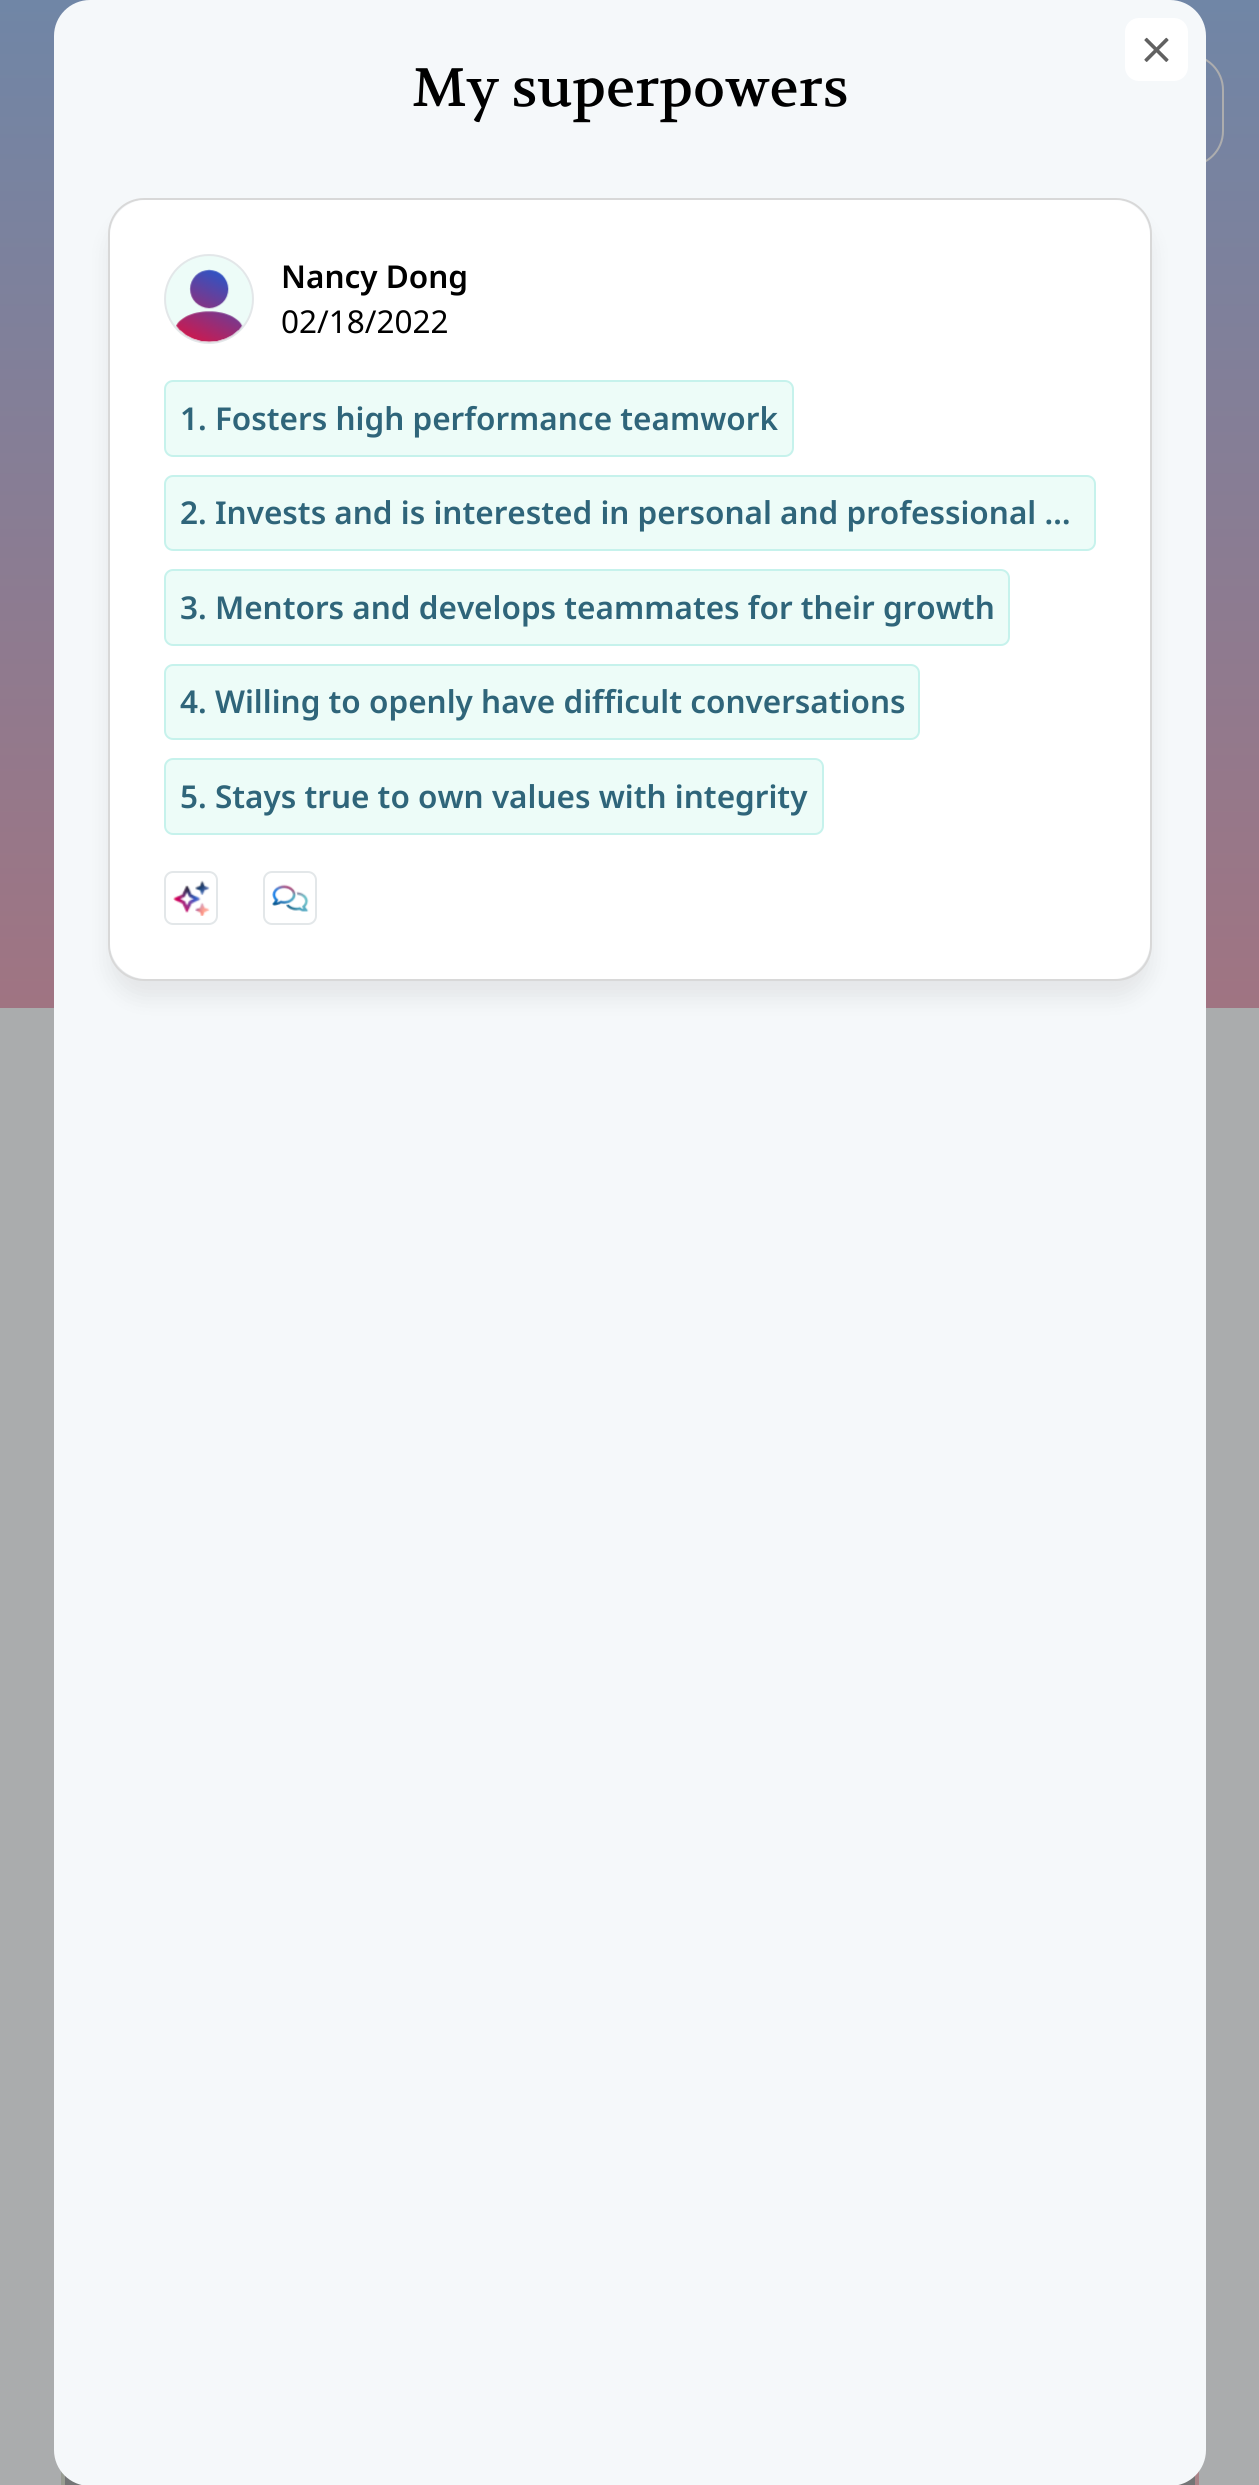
#include <cairo/cairo.h>
#include <math.h>
#include <stddef.h>

static cairo_t *cr;

static void use_color(int r, int g, int b) {
  cairo_set_source_rgb(cr, r / 255.0, g / 255.0, b / 255.0);
}

static void text(double x, double y, const char *s, const char *family, double size, int italic, int bold, int r, int g, int b) {
  cairo_select_font_face(cr, family, italic ? CAIRO_FONT_SLANT_ITALIC : CAIRO_FONT_SLANT_NORMAL,
    bold ? CAIRO_FONT_WEIGHT_BOLD : CAIRO_FONT_WEIGHT_NORMAL);
  cairo_set_font_size(cr, size);
  use_color(r, g, b);
  cairo_move_to(cr, x, y);
  cairo_show_text(cr, s);
}

static void box(double x, double y, double w, double h, int r, int g, int b) {
  use_color(r, g, b);
  cairo_rectangle(cr, x, y, w, h);
  cairo_fill(cr);
}

static void round_rect(double x, double y, double w, double h, double r) {
  cairo_new_sub_path(cr);
  cairo_arc(cr, x + w - r, y + h - r, r, 0, M_PI / 2);
  cairo_arc(cr, x + r, y + h - r, r, M_PI / 2, M_PI);
  cairo_arc(cr, x + r, y + r, r, M_PI, 1.5 * M_PI);
  cairo_arc(cr, x + w - r, y + r, r, 1.5 * M_PI, 2 * M_PI);
  cairo_close_path(cr);
}

static void shadow(double x, double y, double w, double h, double r, double blur, double alpha) {
  cairo_push_group_with_content(cr, CAIRO_CONTENT_ALPHA);
  cairo_set_operator(cr, CAIRO_OPERATOR_SOURCE);
  for (int i = 15; i >= -15 && fmin(w, h) + blur * i / 3 > 0; i -= 2) {
    double e = blur * i / 6;
    cairo_set_source_rgba(cr, 0, 0, 0, alpha * erfc((i - 1) / 8.5) / 2);
    round_rect(x - e, y - e, w + 2 * e, h + 2 * e, fmax(0, fmin(r + e + blur * .6, fmin(w, h) / 2 + e)));
    cairo_fill(cr);
  }
  cairo_pattern_t *soft = cairo_pop_group(cr);
  cairo_mask(cr, soft);
  cairo_pattern_destroy(soft);
}

static void picture(const char *path, double x, double y, double w, double h) {
  cairo_surface_t *image = cairo_image_surface_create_from_png(path);
  cairo_save(cr);
  cairo_set_source_surface(cr, image, x, y);
  cairo_rectangle(cr, x, y, w, h);
  cairo_fill(cr);
  cairo_restore(cr);
  cairo_surface_destroy(image);
}

static void draw(void) {
  cairo_pattern_t *gradient;
  use_color(170, 172, 173);
  cairo_paint(cr);
  gradient = cairo_pattern_create_linear(630, 0, 630, 1008);
  cairo_pattern_add_color_stop_rgba(gradient, 0, 0.439, 0.525, 0.651, 1);
  cairo_pattern_add_color_stop_rgba(gradient, 1, 0.627, 0.455, 0.51, 1);
  cairo_set_source(cr, gradient);
  cairo_pattern_destroy(gradient);
  cairo_rectangle(cr, 0, 0, 1259, 1008);
  cairo_fill(cr);
  round_rect(964, 55, 259, 111, 35);
  use_color(173, 173, 174);
  cairo_stroke(cr);
  gradient = cairo_pattern_create_linear(535, 2138, 725, 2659);
  cairo_pattern_add_color_stop_rgba(gradient, 0, 0.549, 0.608, 0.604, 1);
  cairo_pattern_add_color_stop_rgba(gradient, 0.8, 0.678, 0.624, 0.522, 1);
  cairo_pattern_add_color_stop_rgba(gradient, 0.98, 0.667, 0.518, 0.533, 1);
  cairo_set_source(cr, gradient);
  cairo_pattern_destroy(gradient);
  cairo_rectangle(cr, 61, 2471, 1138, 14);
  cairo_fill(cr);
  box(65, 2475, 1130, 10, 115, 117, 118);
  use_color(245, 248, 250);
  round_rect(54, 0, 1152, 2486, 36);
  cairo_fill(cr);
  use_color(255, 255, 255);
  round_rect(1125, 18, 63, 63, 14);
  cairo_fill(cr);
  picture("img_01.png", 1144, 37, 25, 25);
  use_color(0, 0, 0);
  shadow(108, 216, 1044, 783, 36, 11, 0.07);
  round_rect(109, 199, 1042, 781, 35);
  use_color(216, 216, 216);
  cairo_stroke(cr);
  use_color(255, 255, 255);
  round_rect(110, 200, 1040, 779, 36);
  cairo_fill(cr);
  use_color(237, 252, 248);
  cairo_arc(cr, 209, 299, 44, 0, 2 * M_PI);
  cairo_fill_preserve(cr);
  use_color(227, 231, 233);
  cairo_stroke(cr);
  picture("img_02.png", 176, 269, 67, 74);
  use_color(237, 252, 248);
  round_rect(165, 381, 628, 75, 8);
  cairo_fill_preserve(cr);
  use_color(198, 242, 236);
  cairo_stroke(cr);
  use_color(237, 252, 248);
  round_rect(165, 476, 930, 74, 8);
  cairo_fill_preserve(cr);
  use_color(198, 242, 236);
  cairo_stroke(cr);
  use_color(237, 252, 248);
  round_rect(165, 570, 844, 75, 8);
  cairo_fill_preserve(cr);
  use_color(198, 242, 236);
  cairo_stroke(cr);
  use_color(237, 252, 248);
  round_rect(165, 665, 754, 74, 8);
  cairo_fill_preserve(cr);
  use_color(198, 242, 236);
  cairo_stroke(cr);
  use_color(237, 252, 248);
  round_rect(165, 759, 658, 75, 8);
  cairo_fill_preserve(cr);
  use_color(198, 242, 236);
  cairo_stroke(cr);
  round_rect(165, 872, 52, 52, 8);
  use_color(227, 231, 233);
  cairo_stroke(cr);
  picture("img_03.png", 173, 880, 37, 36);
  round_rect(264, 872, 52, 52, 8);
  cairo_stroke(cr);
  picture("img_04.png", 272, 884, 37, 28);
  text(412, 106, "My superpowers", "Volkhov", 54, 0, 0, 0, 0, 0);
  text(281, 288, "Nancy Dong", "Noto Sans SemiBold", 31.5, 0, 0, 0, 0, 0);
  text(281, 333, "02/18/2022", "Noto Sans", 31.5, 0, 0, 0, 0, 0);
  text(180, 430, "1. Fosters high performance teamwork", "Noto Sans SemiBold", 31.5, 0, 0, 47, 101, 122);
  text(180, 524, "2. Invests and is interested in personal and professional …", "Noto Sans SemiBold", 31.5, 0, 0, 47, 101, 122);
  text(180, 619, "3. Mentors and develops teammates for their growth", "Noto Sans SemiBold", 31.5, 0, 0, 47, 101, 122);
  text(180, 713, "4. Willing to openly have difficult conversations", "Noto Sans SemiBold", 31.5, 0, 0, 47, 101, 122);
  text(180, 808, "5. Stays true to own values with integrity", "Noto Sans SemiBold", 31.5, 0, 0, 47, 101, 122);
}

int main(void) {
  cairo_surface_t *surface = cairo_image_surface_create(CAIRO_FORMAT_RGB24, 1259, 2485);
  cr = cairo_create(surface);
  cairo_font_options_t *options = cairo_font_options_create();
  cairo_font_options_set_hint_metrics(options, CAIRO_HINT_METRICS_OFF);
  cairo_font_options_set_hint_style(options, CAIRO_HINT_STYLE_NONE);
  cairo_set_font_options(cr, options);
  cairo_set_miter_limit(cr, 4);
  draw();
  cairo_surface_write_to_png(surface, "out.png");
  cairo_font_options_destroy(options);
  cairo_destroy(cr);
  cairo_surface_destroy(surface);
  return 0;
}
